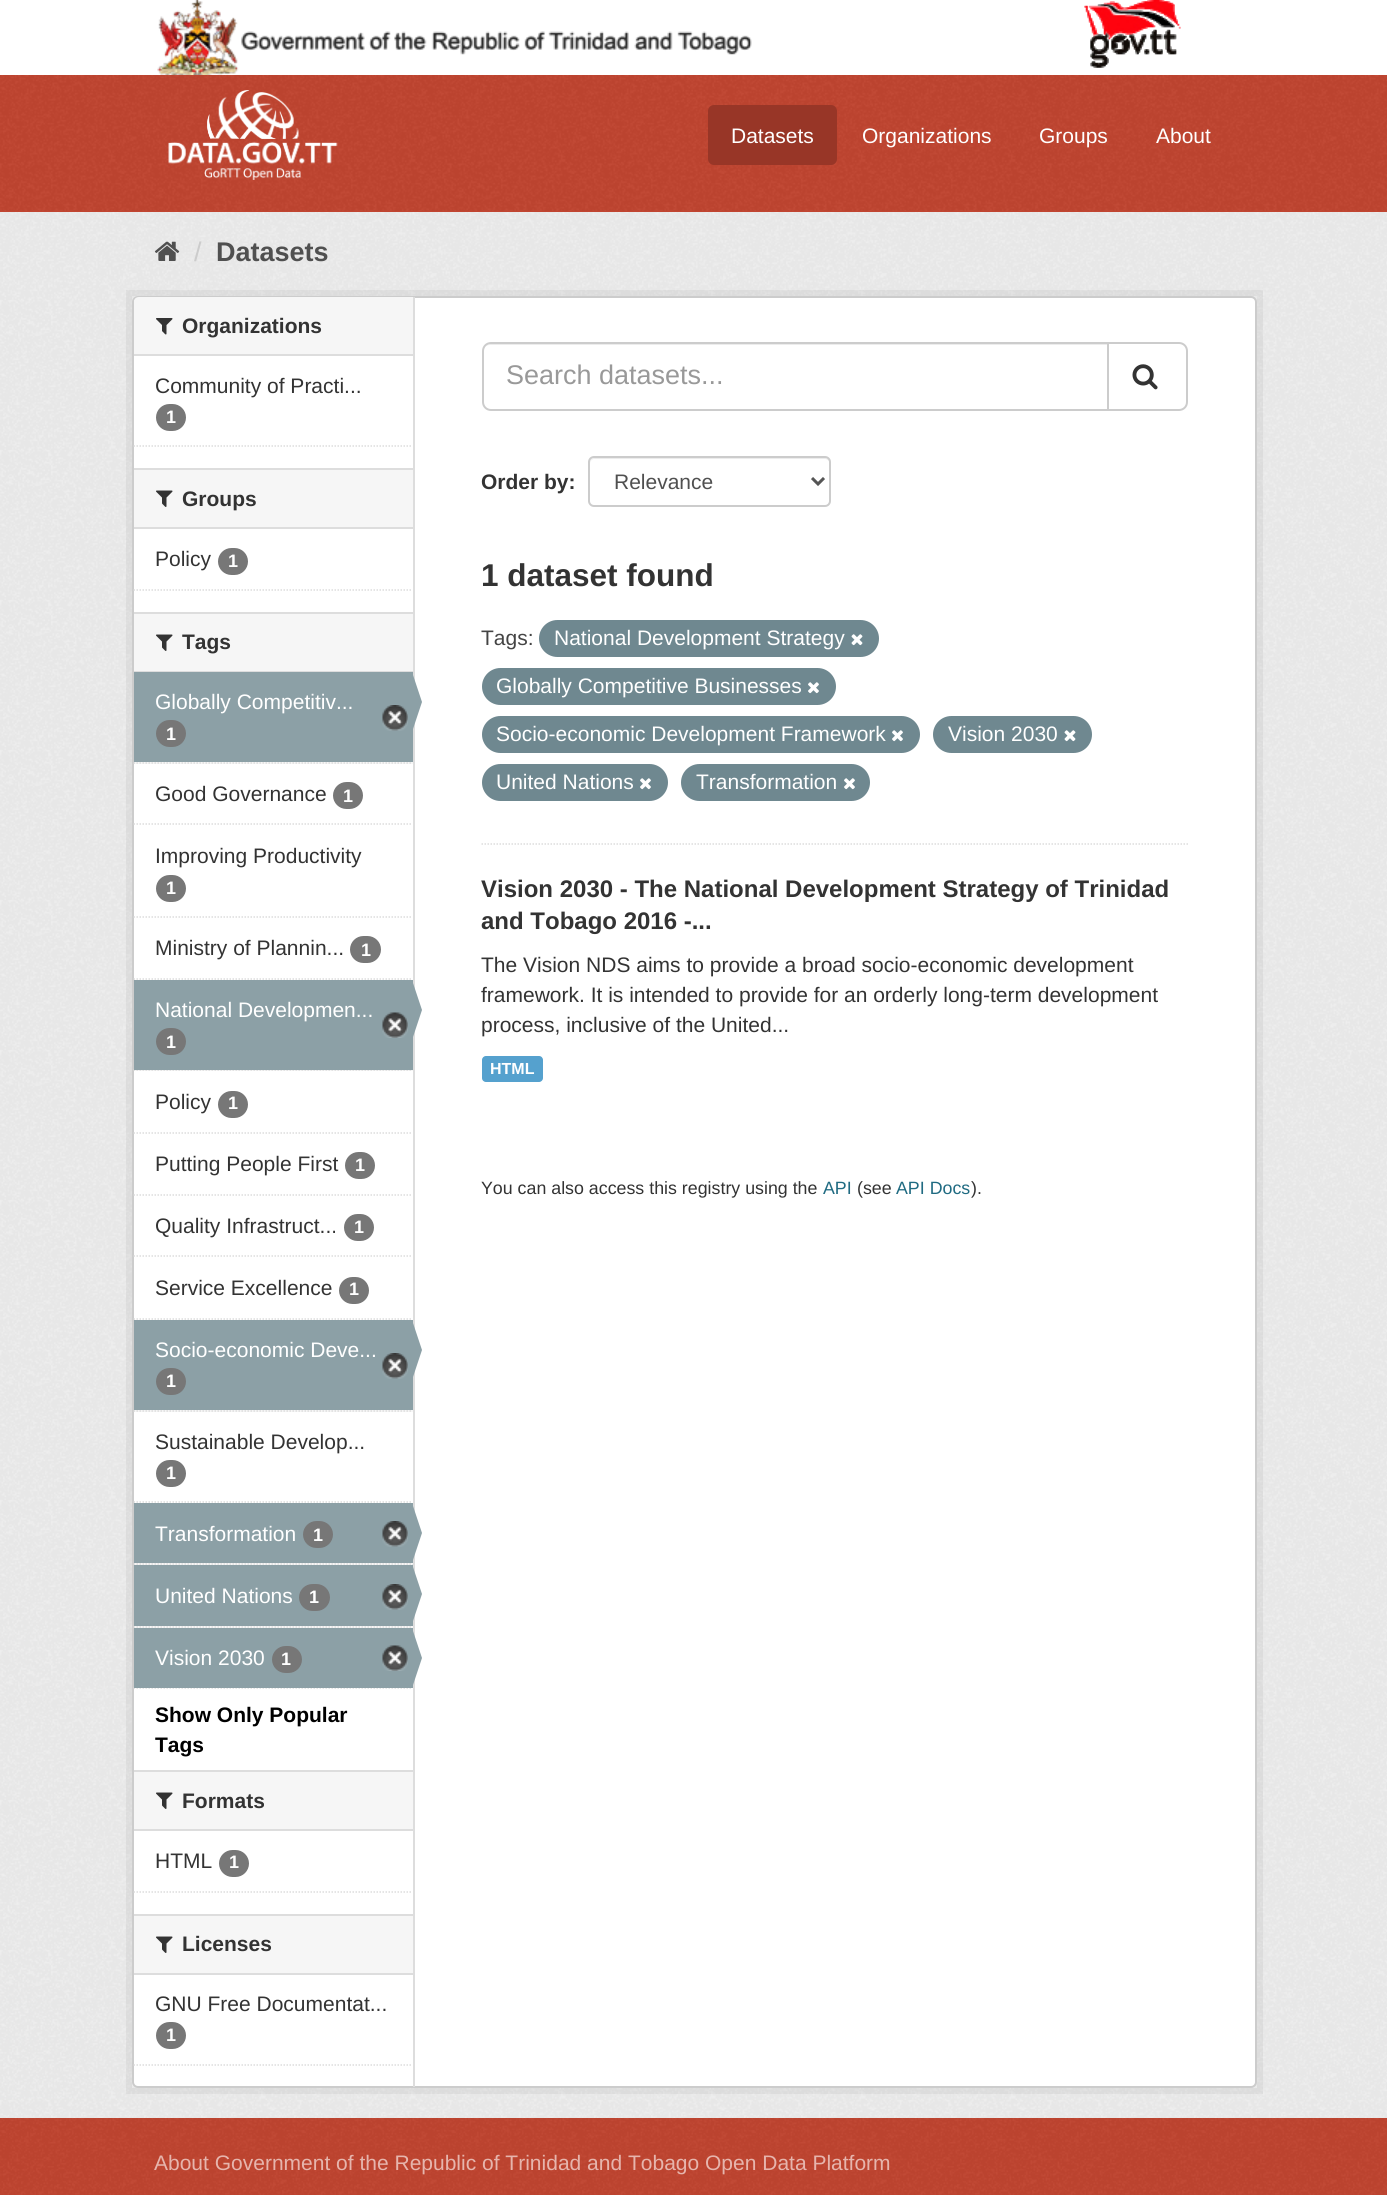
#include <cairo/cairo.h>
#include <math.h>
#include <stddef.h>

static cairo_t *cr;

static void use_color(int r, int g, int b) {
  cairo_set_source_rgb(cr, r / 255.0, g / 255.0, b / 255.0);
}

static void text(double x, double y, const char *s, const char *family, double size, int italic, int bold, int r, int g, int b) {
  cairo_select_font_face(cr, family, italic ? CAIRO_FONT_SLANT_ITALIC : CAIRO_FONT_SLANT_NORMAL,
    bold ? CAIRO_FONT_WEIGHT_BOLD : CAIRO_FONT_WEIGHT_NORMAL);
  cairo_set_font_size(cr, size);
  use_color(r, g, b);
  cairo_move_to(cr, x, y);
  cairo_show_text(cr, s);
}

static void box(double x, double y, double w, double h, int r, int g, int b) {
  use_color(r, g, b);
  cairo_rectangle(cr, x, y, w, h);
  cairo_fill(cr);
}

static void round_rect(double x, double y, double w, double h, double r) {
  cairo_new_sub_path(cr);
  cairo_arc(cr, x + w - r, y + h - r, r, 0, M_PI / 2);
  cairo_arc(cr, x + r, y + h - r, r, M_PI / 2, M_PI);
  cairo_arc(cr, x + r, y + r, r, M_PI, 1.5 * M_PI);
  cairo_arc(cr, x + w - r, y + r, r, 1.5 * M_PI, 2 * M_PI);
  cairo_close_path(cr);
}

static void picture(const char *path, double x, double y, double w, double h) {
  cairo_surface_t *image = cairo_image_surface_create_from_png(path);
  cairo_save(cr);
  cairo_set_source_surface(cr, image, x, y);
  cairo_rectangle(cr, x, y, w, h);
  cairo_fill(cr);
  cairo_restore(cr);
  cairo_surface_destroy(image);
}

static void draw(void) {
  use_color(255, 255, 255);
  cairo_paint(cr);
  picture("img_01.png", 157, 0, 1024, 75);
  picture("img_02.png", 1084, 0, 97, 68);
  box(0, 75, 1387, 137, 193, 69, 49);
  picture("img_03.png", 0, 75, 1387, 136);
  picture("img_04.png", 168, 90, 170, 90);
  use_color(152, 54, 39);
  round_rect(708, 105, 129, 60, 6);
  cairo_fill(cr);
  box(0, 212, 1387, 1906, 238, 238, 238);
  picture("img_05.png", 0, 212, 1387, 1906);
  picture("img_06.png", 154, 241, 26, 20);
  cairo_rectangle(cr, 129, 293, 1131, 1798);
  cairo_set_source_rgba(cr, 0, 0, 0, 0.05);
  cairo_set_line_width(cr, 6);
  cairo_stroke(cr);
  use_color(255, 255, 255);
  round_rect(133, 297, 1123, 1790, 5);
  cairo_fill_preserve(cr);
  use_color(204, 204, 204);
  cairo_set_line_width(cr, 2);
  cairo_stroke(cr);
  use_color(246, 246, 246);
  cairo_new_path(cr);
  cairo_move_to(cr, 139, 297);
  cairo_line_to(cr, 413, 297);
  cairo_line_to(cr, 413, 356);
  cairo_line_to(cr, 134, 356);
  cairo_line_to(cr, 134, 302);
  cairo_curve_to(cr, 134, 299, 136, 297, 139, 297);
  cairo_close_path(cr);
  cairo_fill(cr);
  box(134, 354, 279, 2, 221, 221, 221);
  picture("img_07.png", 156, 318, 17, 17);
  use_color(119, 119, 119);
  round_rect(156, 404, 30, 27, 13.5);
  cairo_fill(cr);
  cairo_new_path(cr);
  cairo_move_to(cr, 133.5, 446);
  cairo_line_to(cr, 412.5, 446);
  use_color(221, 221, 221);
  cairo_set_line_width(cr, 1.5);
  cairo_set_dash(cr, (double[]){1.5, 1.5}, 2, 0);
  cairo_stroke(cr);
  box(134, 470, 279, 57, 246, 246, 246);
  box(134, 468, 279, 2, 221, 221, 221);
  box(134, 527, 279, 2, 221, 221, 221);
  picture("img_08.png", 156, 490, 17, 17);
  use_color(119, 119, 119);
  round_rect(218, 548, 30, 27, 13.5);
  cairo_fill(cr);
  cairo_new_path(cr);
  cairo_move_to(cr, 133.5, 590);
  cairo_line_to(cr, 412.5, 590);
  use_color(221, 221, 221);
  cairo_stroke(cr);
  box(134, 614, 279, 57, 246, 246, 246);
  box(134, 612, 279, 2, 221, 221, 221);
  box(134, 671, 279, 1, 221, 221, 221);
  picture("img_08.png", 156, 634, 17, 17);
  box(134, 762, 279, 2, 246, 246, 246);
  cairo_new_path(cr);
  cairo_move_to(cr, 133.5, 763);
  cairo_line_to(cr, 412.5, 763);
  use_color(221, 221, 221);
  cairo_stroke(cr);
  box(134, 672, 279, 90, 140, 160, 166);
  picture("img_09.png", 382, 705, 26, 26);
  box(413, 297, 2, 1790, 221, 221, 221);
  use_color(140, 160, 166);
  cairo_new_path(cr);
  cairo_move_to(cr, 412, 732);
  cairo_line_to(cr, 412, 672);
  cairo_line_to(cr, 422, 702);
  cairo_close_path(cr);
  cairo_fill(cr);
  use_color(119, 119, 119);
  round_rect(156, 720, 30, 27, 13.5);
  cairo_fill(cr);
  cairo_new_path(cr);
  cairo_move_to(cr, 133.5, 824);
  cairo_line_to(cr, 412.5, 824);
  use_color(221, 221, 221);
  cairo_stroke(cr);
  use_color(119, 119, 119);
  round_rect(333, 782, 30, 27, 13.5);
  cairo_fill(cr);
  cairo_new_path(cr);
  cairo_move_to(cr, 133.5, 917);
  cairo_line_to(cr, 412.5, 917);
  use_color(221, 221, 221);
  cairo_stroke(cr);
  use_color(119, 119, 119);
  round_rect(156, 875, 30, 27, 13.5);
  cairo_fill(cr);
  cairo_new_path(cr);
  cairo_move_to(cr, 133.5, 979);
  cairo_line_to(cr, 412.5, 979);
  use_color(221, 221, 221);
  cairo_stroke(cr);
  use_color(119, 119, 119);
  round_rect(350, 936, 31, 27, 13.5);
  cairo_fill(cr);
  box(134, 1070, 279, 1, 246, 246, 246);
  cairo_new_path(cr);
  cairo_move_to(cr, 133.5, 1070);
  cairo_line_to(cr, 412.5, 1070);
  use_color(221, 221, 221);
  cairo_stroke(cr);
  box(134, 980, 279, 90, 140, 160, 166);
  picture("img_10.png", 382, 1012, 26, 26);
  cairo_new_path(cr);
  cairo_move_to(cr, 412, 1040);
  cairo_line_to(cr, 412, 980);
  cairo_line_to(cr, 422, 1010);
  cairo_close_path(cr);
  cairo_fill(cr);
  use_color(119, 119, 119);
  round_rect(156, 1028, 30, 27, 13.5);
  cairo_fill(cr);
  cairo_new_path(cr);
  cairo_move_to(cr, 133.5, 1133);
  cairo_line_to(cr, 412.5, 1133);
  use_color(221, 221, 221);
  cairo_stroke(cr);
  use_color(119, 119, 119);
  round_rect(218, 1091, 30, 27, 13.5);
  cairo_fill(cr);
  cairo_new_path(cr);
  cairo_move_to(cr, 133.5, 1195);
  cairo_line_to(cr, 412.5, 1195);
  use_color(221, 221, 221);
  cairo_stroke(cr);
  use_color(119, 119, 119);
  round_rect(345, 1152, 30, 27, 13.5);
  cairo_fill(cr);
  cairo_new_path(cr);
  cairo_move_to(cr, 133.5, 1256);
  cairo_line_to(cr, 412.5, 1256);
  use_color(221, 221, 221);
  cairo_stroke(cr);
  use_color(119, 119, 119);
  round_rect(344, 1214, 30, 27, 13.5);
  cairo_fill(cr);
  cairo_new_path(cr);
  cairo_move_to(cr, 133.5, 1319);
  cairo_line_to(cr, 412.5, 1319);
  use_color(221, 221, 221);
  cairo_stroke(cr);
  use_color(119, 119, 119);
  round_rect(339, 1277, 30, 27, 13.5);
  cairo_fill(cr);
  box(134, 1410, 279, 2, 246, 246, 246);
  cairo_new_path(cr);
  cairo_move_to(cr, 133.5, 1411);
  cairo_line_to(cr, 412.5, 1411);
  use_color(221, 221, 221);
  cairo_stroke(cr);
  box(134, 1320, 279, 90, 140, 160, 166);
  cairo_new_path(cr);
  cairo_move_to(cr, 412, 1380);
  cairo_line_to(cr, 412, 1320);
  cairo_line_to(cr, 422, 1350);
  cairo_close_path(cr);
  cairo_fill(cr);
  picture("img_09.png", 382, 1353, 26, 26);
  use_color(119, 119, 119);
  round_rect(156, 1368, 30, 27, 13.5);
  cairo_fill(cr);
  cairo_new_path(cr);
  cairo_move_to(cr, 133.5, 1502);
  cairo_line_to(cr, 412.5, 1502);
  use_color(221, 221, 221);
  cairo_stroke(cr);
  use_color(119, 119, 119);
  round_rect(156, 1460, 30, 27, 13.5);
  cairo_fill(cr);
  box(134, 1563, 279, 2, 246, 246, 246);
  cairo_new_path(cr);
  cairo_move_to(cr, 133.5, 1564);
  cairo_line_to(cr, 412.5, 1564);
  use_color(221, 221, 221);
  cairo_stroke(cr);
  box(134, 1503, 279, 60, 140, 160, 166);
  use_color(119, 119, 119);
  round_rect(303, 1521, 30, 27, 13.5);
  cairo_fill(cr);
  picture("img_09.png", 382, 1521, 26, 26);
  use_color(140, 160, 166);
  cairo_new_path(cr);
  cairo_move_to(cr, 412, 1563);
  cairo_line_to(cr, 412, 1503);
  cairo_line_to(cr, 422, 1533);
  cairo_close_path(cr);
  cairo_fill(cr);
  box(134, 1626, 279, 2, 246, 246, 246);
  cairo_new_path(cr);
  cairo_move_to(cr, 133.5, 1627);
  cairo_line_to(cr, 412.5, 1627);
  use_color(221, 221, 221);
  cairo_stroke(cr);
  box(134, 1565, 279, 61, 140, 160, 166);
  use_color(119, 119, 119);
  round_rect(299, 1584, 31, 27, 13.5);
  cairo_fill(cr);
  picture("img_09.png", 382, 1584, 26, 26);
  use_color(140, 160, 166);
  cairo_new_path(cr);
  cairo_move_to(cr, 412, 1624);
  cairo_line_to(cr, 412, 1564);
  cairo_line_to(cr, 422, 1594);
  cairo_close_path(cr);
  cairo_fill(cr);
  cairo_new_path(cr);
  cairo_move_to(cr, 133.5, 1688);
  cairo_line_to(cr, 412.5, 1688);
  use_color(221, 221, 221);
  cairo_stroke(cr);
  box(134, 1628, 279, 60, 140, 160, 166);
  use_color(119, 119, 119);
  round_rect(272, 1646, 30, 27, 13.5);
  cairo_fill(cr);
  picture("img_10.png", 382, 1645, 26, 26);
  use_color(140, 160, 166);
  cairo_new_path(cr);
  cairo_move_to(cr, 412, 1688);
  cairo_line_to(cr, 412, 1628);
  cairo_line_to(cr, 422, 1658);
  cairo_close_path(cr);
  cairo_fill(cr);
  box(134, 1772, 279, 57, 246, 246, 246);
  box(134, 1770, 279, 2, 221, 221, 221);
  box(134, 1829, 279, 2, 221, 221, 221);
  picture("img_08.png", 156, 1792, 17, 17);
  use_color(119, 119, 119);
  round_rect(219, 1850, 30, 27, 13.5);
  cairo_fill(cr);
  cairo_new_path(cr);
  cairo_move_to(cr, 133.5, 1892);
  cairo_line_to(cr, 412.5, 1892);
  use_color(221, 221, 221);
  cairo_stroke(cr);
  box(134, 1916, 279, 57, 246, 246, 246);
  box(134, 1914, 279, 2, 221, 221, 221);
  box(134, 1973, 279, 2, 221, 221, 221);
  picture("img_08.png", 156, 1936, 17, 17);
  use_color(119, 119, 119);
  round_rect(156, 2022, 30, 27, 13.5);
  cairo_fill(cr);
  cairo_new_path(cr);
  cairo_move_to(cr, 133.5, 2065);
  cairo_line_to(cr, 412.5, 2065);
  use_color(221, 221, 221);
  cairo_stroke(cr);
  cairo_new_path(cr);
  cairo_move_to(cr, 481.5, 844);
  cairo_line_to(cr, 1188, 844);
  cairo_stroke(cr);
  use_color(236, 236, 236);
  cairo_new_path(cr);
  cairo_move_to(cr, 490, 345);
  cairo_line_to(cr, 1107, 345);
  cairo_line_to(cr, 1107, 344);
  cairo_line_to(cr, 491, 344);
  cairo_curve_to(cr, 487, 344, 483, 348, 483, 352);
  cairo_curve_to(cr, 483, 348, 486, 345, 490, 345);
  cairo_close_path(cr);
  cairo_fill(cr);
  cairo_new_path(cr);
  cairo_move_to(cr, 491, 343);
  cairo_line_to(cr, 1108, 343);
  cairo_line_to(cr, 1108, 410);
  cairo_line_to(cr, 491, 410);
  cairo_curve_to(cr, 486.5, 410, 483, 406.5, 483, 402);
  cairo_line_to(cr, 483, 351);
  cairo_curve_to(cr, 483, 346.5, 486.5, 343, 491, 343);
  cairo_close_path(cr);
  use_color(204, 204, 204);
  cairo_set_line_width(cr, 2);
  cairo_set_dash(cr, NULL, 0, 0);
  cairo_stroke(cr);
  use_color(255, 255, 255);
  cairo_new_path(cr);
  cairo_move_to(cr, 1108, 343);
  cairo_line_to(cr, 1179, 343);
  cairo_curve_to(cr, 1183.5, 343, 1187, 346.5, 1187, 351);
  cairo_line_to(cr, 1187, 402);
  cairo_curve_to(cr, 1187, 406.5, 1183.5, 410, 1179, 410);
  cairo_line_to(cr, 1108, 410);
  cairo_close_path(cr);
  cairo_fill_preserve(cr);
  use_color(204, 204, 204);
  cairo_stroke(cr);
  picture("img_11.png", 1132, 364, 26, 26);
  use_color(236, 236, 236);
  cairo_new_path(cr);
  cairo_move_to(cr, 594, 459);
  cairo_line_to(cr, 825, 459);
  cairo_curve_to(cr, 827, 459, 830, 461, 830, 464);
  cairo_line_to(cr, 830, 463);
  cairo_curve_to(cr, 830, 460, 828, 458, 825, 458);
  cairo_line_to(cr, 595, 458);
  cairo_curve_to(cr, 592, 458, 590, 460, 590, 463);
  cairo_line_to(cr, 590, 464);
  cairo_curve_to(cr, 590, 461, 592, 459, 594, 459);
  cairo_close_path(cr);
  cairo_fill(cr);
  round_rect(589, 457, 241, 49, 5);
  use_color(204, 204, 204);
  cairo_stroke(cr);
  cairo_new_path(cr);
  cairo_move_to(cr, 812, 478);
  cairo_line_to(cr, 818, 484);
  cairo_line_to(cr, 824, 478);
  use_color(85, 85, 85);
  cairo_set_line_width(cr, 3);
  cairo_stroke(cr);
  use_color(111, 136, 144);
  round_rect(539, 620, 340, 37, 18.5);
  cairo_fill(cr);
  picture("img_12.png", 851, 634, 12, 12);
  round_rect(482, 668, 354, 37, 18.5);
  cairo_fill(cr);
  picture("img_13.png", 808, 682, 11, 12);
  round_rect(482, 716, 438, 37, 18.5);
  cairo_fill(cr);
  picture("img_13.png", 892, 730, 11, 12);
  round_rect(933, 716, 159, 37, 18.5);
  cairo_fill(cr);
  picture("img_12.png", 1064, 730, 12, 12);
  round_rect(482, 764, 186, 37, 18.5);
  cairo_fill(cr);
  picture("img_13.png", 640, 778, 11, 12);
  round_rect(681, 764, 189, 37, 18.5);
  cairo_fill(cr);
  picture("img_13.png", 844, 778, 11, 12);
  use_color(85, 161, 206);
  round_rect(482, 1056, 61, 26, 4);
  cairo_fill(cr);
  box(0, 2118, 1387, 77, 193, 69, 49);
  picture("img_14.png", 0, 2118, 1387, 77);
  text(731, 143, "Datasets", "Liberation Sans", 21, 0, 0, 255, 255, 255);
  text(862, 143, "Organizations", "Liberation Sans", 21, 0, 0, 255, 255, 255);
  text(1039, 143, "Groups", "Liberation Sans", 21, 0, 0, 255, 255, 255);
  text(1156, 143, "About", "Liberation Sans", 21, 0, 0, 255, 255, 255);
  text(194, 261, "/", "Liberation Sans", 27, 0, 0, 204, 204, 204);
  text(216, 261, "Datasets", "Liberation Sans", 27, 0, 1, 80, 80, 80);
  text(182, 333, "Organizations", "Liberation Sans", 21, 0, 1, 51, 51, 51);
  text(155, 393, "Community of Practi...", "Liberation Sans", 21, 0, 0, 51, 51, 51);
  text(166, 423, "1", "Liberation Sans", 18, 0, 1, 255, 255, 255);
  text(182, 506, "Groups", "Liberation Sans", 21, 0, 1, 51, 51, 51);
  text(155, 566, "Policy", "Liberation Sans", 21, 0, 0, 51, 51, 51);
  text(228, 567, "1", "Liberation Sans", 18, 0, 1, 255, 255, 255);
  text(182, 649, "Tags", "Liberation Sans", 21, 0, 1, 51, 51, 51);
  text(155, 709, "Globally Competitiv...", "Liberation Sans", 21, 0, 0, 255, 255, 255);
  text(166, 740, "1", "Liberation Sans", 18, 0, 1, 255, 255, 255);
  text(155, 801, "Good Governance", "Liberation Sans", 21, 0, 0, 51, 51, 51);
  text(343, 802, "1", "Liberation Sans", 18, 0, 1, 255, 255, 255);
  text(155, 863, "Improving Productivity", "Liberation Sans", 21, 0, 0, 51, 51, 51);
  text(166, 894, "1", "Liberation Sans", 18, 0, 1, 255, 255, 255);
  text(155, 955, "Ministry of Plannin...", "Liberation Sans", 21, 0, 0, 51, 51, 51);
  text(361, 956, "1", "Liberation Sans", 18, 0, 1, 255, 255, 255);
  text(155, 1017, "National Developmen...", "Liberation Sans", 21, 0, 0, 255, 255, 255);
  text(166, 1048, "1", "Liberation Sans", 18, 0, 1, 255, 255, 255);
  text(155, 1109, "Policy", "Liberation Sans", 21, 0, 0, 51, 51, 51);
  text(228, 1109, "1", "Liberation Sans", 18, 0, 1, 255, 255, 255);
  text(155, 1171, "Putting People First", "Liberation Sans", 21, 0, 0, 51, 51, 51);
  text(355, 1171, "1", "Liberation Sans", 18, 0, 1, 255, 255, 255);
  text(155, 1233, "Quality Infrastruct...", "Liberation Sans", 21, 0, 0, 51, 51, 51);
  text(354, 1233, "1", "Liberation Sans", 18, 0, 1, 255, 255, 255);
  text(155, 1295, "Service Excellence", "Liberation Sans", 21, 0, 0, 51, 51, 51);
  text(349, 1295, "1", "Liberation Sans", 18, 0, 1, 255, 255, 255);
  text(155, 1357, "Socio-economic Deve...", "Liberation Sans", 21, 0, 0, 255, 255, 255);
  text(166, 1387, "1", "Liberation Sans", 18, 0, 1, 255, 255, 255);
  text(155, 1449, "Sustainable Develop...", "Liberation Sans", 21, 0, 0, 51, 51, 51);
  text(166, 1479, "1", "Liberation Sans", 18, 0, 1, 255, 255, 255);
  text(155, 1541, "Transformation", "Liberation Sans", 21, 0, 0, 255, 255, 255);
  text(313, 1541, "1", "Liberation Sans", 18, 0, 1, 255, 255, 255);
  text(155, 1603, "United Nations", "Liberation Sans", 21, 0, 0, 255, 255, 255);
  text(309, 1603, "1", "Liberation Sans", 18, 0, 1, 255, 255, 255);
  text(155, 1665, "Vision 2030", "Liberation Sans", 21, 0, 0, 255, 255, 255);
  text(281, 1665, "1", "Liberation Sans", 18, 0, 1, 255, 255, 255);
  text(155, 1722, "Show Only Popular", "Liberation Sans", 21, 0, 1, 0, 0, 0);
  text(155, 1752, "Tags", "Liberation Sans", 21, 0, 1, 0, 0, 0);
  text(182, 1808, "Formats", "Liberation Sans", 21, 0, 1, 51, 51, 51);
  text(155, 1868, "HTML", "Liberation Sans", 21, 0, 0, 51, 51, 51);
  text(229, 1868, "1", "Liberation Sans", 18, 0, 1, 255, 255, 255);
  text(182, 1951, "Licenses", "Liberation Sans", 21, 0, 1, 51, 51, 51);
  text(155, 2011, "GNU Free Documentat...", "Liberation Sans", 21, 0, 0, 51, 51, 51);
  text(166, 2041, "1", "Liberation Sans", 18, 0, 1, 255, 255, 255);
  text(506, 384, "Search datasets...", "Liberation Sans", 27, 0, 0, 153, 153, 153);
  text(481, 489, "Order by:", "Liberation Sans", 21, 0, 1, 51, 51, 51);
  text(614, 489, "Relevance", "Liberation Sans", 21, 0, 0, 80, 80, 80);
  text(481, 586, "1 dataset found", "Liberation Sans", 31.5, 0, 1, 51, 51, 51);
  text(481, 645, "Tags:", "Liberation Sans", 21, 0, 0, 68, 68, 68);
  text(554, 645, "National Development Strategy", "Liberation Sans", 21, 0, 0, 255, 255, 255);
  text(496, 693, "Globally Competitive Businesses", "Liberation Sans", 21, 0, 0, 255, 255, 255);
  text(496, 741, "Socio-economic Development Framework", "Liberation Sans", 21, 0, 0, 255, 255, 255);
  text(948, 741, "Vision 2030", "Liberation Sans", 21, 0, 0, 255, 255, 255);
  text(496, 789, "United Nations", "Liberation Sans", 21, 0, 0, 255, 255, 255);
  text(696, 789, "Transformation", "Liberation Sans", 21, 0, 0, 255, 255, 255);
  text(481, 897, "Vision 2030 - The National Development Strategy of Trinidad", "Liberation Sans", 24, 0, 1, 51, 51, 51);
  text(481, 929, "and Tobago 2016 -...", "Liberation Sans", 24, 0, 1, 51, 51, 51);
  text(481, 972, "The Vision NDS aims to provide a broad socio-economic development", "Liberation Sans", 21, 0, 0, 51, 51, 51);
  text(481, 1002, "framework. It is intended to provide for an orderly long-term development", "Liberation Sans", 21, 0, 0, 51, 51, 51);
  text(481, 1032, "process, inclusive of the United...", "Liberation Sans", 21, 0, 0, 51, 51, 51);
  text(490, 1074, "HTML", "Liberation Sans", 16, 0, 1, 255, 255, 255);
  text(481, 1194, "You can also access this registry using the", "Liberation Sans", 17.8, 0, 0, 51, 51, 51);
  text(823, 1194, "API", "Liberation Sans", 17.8, 0, 0, 32, 107, 130);
  text(857, 1194, "(see", "Liberation Sans", 17.8, 0, 0, 51, 51, 51);
  text(896, 1194, "API Docs", "Liberation Sans", 17.8, 0, 0, 32, 107, 130);
  text(971, 1194, ").", "Liberation Sans", 17.8, 0, 0, 51, 51, 51);
  text(154, 2170, "About Government of the Republic of Trinidad and Tobago Open Data Platform", "Liberation Sans", 21, 0, 0, 230, 181, 173);
}

int main(void) {
  cairo_surface_t *surface = cairo_image_surface_create(CAIRO_FORMAT_RGB24, 1387, 2195);
  cr = cairo_create(surface);
  cairo_font_options_t *options = cairo_font_options_create();
  cairo_font_options_set_hint_metrics(options, CAIRO_HINT_METRICS_OFF);
  cairo_font_options_set_hint_style(options, CAIRO_HINT_STYLE_NONE);
  cairo_set_font_options(cr, options);
  cairo_set_miter_limit(cr, 4);
  draw();
  cairo_surface_write_to_png(surface, "out.png");
  cairo_font_options_destroy(options);
  cairo_destroy(cr);
  cairo_surface_destroy(surface);
  return 0;
}
